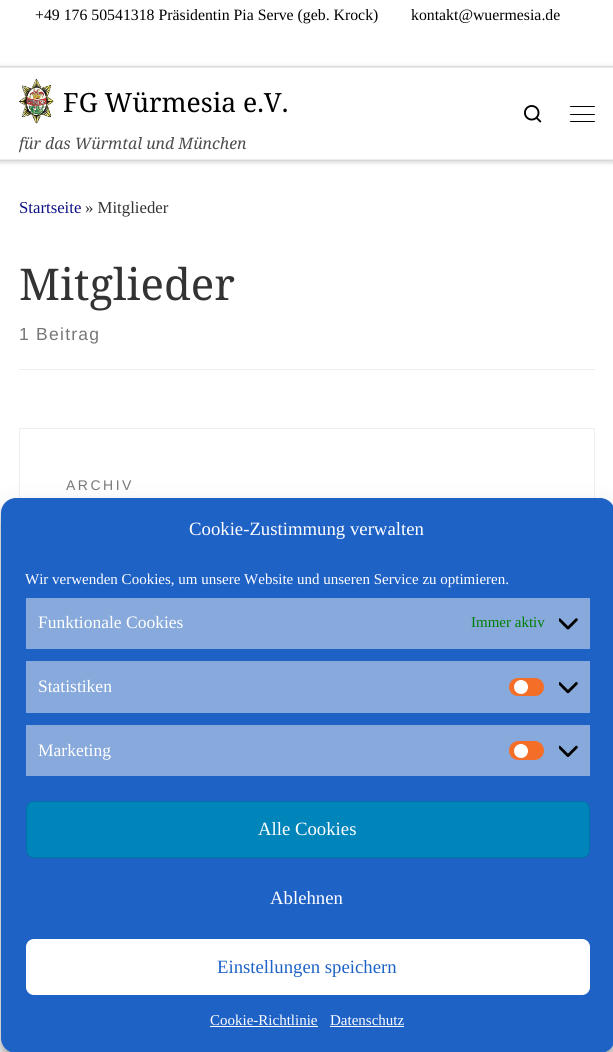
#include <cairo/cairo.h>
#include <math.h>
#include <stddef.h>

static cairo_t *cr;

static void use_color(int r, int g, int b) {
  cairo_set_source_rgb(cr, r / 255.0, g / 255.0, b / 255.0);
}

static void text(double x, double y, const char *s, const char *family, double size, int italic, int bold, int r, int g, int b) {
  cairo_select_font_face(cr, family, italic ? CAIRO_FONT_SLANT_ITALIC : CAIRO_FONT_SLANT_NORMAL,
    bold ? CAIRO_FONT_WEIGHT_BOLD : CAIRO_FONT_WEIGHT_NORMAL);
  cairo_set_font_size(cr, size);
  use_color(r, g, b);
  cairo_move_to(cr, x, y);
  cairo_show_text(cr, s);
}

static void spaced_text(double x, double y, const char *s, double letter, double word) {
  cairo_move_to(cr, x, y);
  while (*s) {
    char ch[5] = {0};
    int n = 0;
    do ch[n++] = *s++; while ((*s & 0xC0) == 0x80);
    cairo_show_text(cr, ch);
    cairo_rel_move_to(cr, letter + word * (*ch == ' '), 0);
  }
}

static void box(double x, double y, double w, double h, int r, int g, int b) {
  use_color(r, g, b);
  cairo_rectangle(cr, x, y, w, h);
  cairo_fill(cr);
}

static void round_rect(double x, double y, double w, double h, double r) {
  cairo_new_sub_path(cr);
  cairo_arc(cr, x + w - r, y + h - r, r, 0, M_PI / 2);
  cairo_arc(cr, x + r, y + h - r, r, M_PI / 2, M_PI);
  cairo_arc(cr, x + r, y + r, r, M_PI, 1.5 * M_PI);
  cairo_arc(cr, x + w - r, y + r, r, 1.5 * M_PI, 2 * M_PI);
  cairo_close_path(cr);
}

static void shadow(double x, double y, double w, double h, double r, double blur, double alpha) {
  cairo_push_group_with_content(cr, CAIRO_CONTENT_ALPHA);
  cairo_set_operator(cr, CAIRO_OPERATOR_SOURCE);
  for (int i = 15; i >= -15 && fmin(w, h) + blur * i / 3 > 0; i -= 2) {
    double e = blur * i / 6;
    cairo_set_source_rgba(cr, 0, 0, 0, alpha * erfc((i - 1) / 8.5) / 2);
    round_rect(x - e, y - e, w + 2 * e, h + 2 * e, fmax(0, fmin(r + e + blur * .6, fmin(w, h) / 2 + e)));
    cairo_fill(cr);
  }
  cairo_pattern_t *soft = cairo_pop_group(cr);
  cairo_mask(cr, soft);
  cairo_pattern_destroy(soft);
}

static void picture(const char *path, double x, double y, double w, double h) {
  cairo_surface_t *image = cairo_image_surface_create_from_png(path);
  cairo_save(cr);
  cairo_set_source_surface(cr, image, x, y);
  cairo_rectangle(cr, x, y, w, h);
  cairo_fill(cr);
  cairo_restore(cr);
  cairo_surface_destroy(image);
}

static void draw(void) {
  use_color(255, 255, 255);
  cairo_paint(cr);
  cairo_save(cr);
  cairo_rectangle(cr, 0, 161, 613, 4);
  cairo_clip(cr);
  use_color(102, 102, 102);
  shadow(0, 3, 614, 161, 0, 1, 0.08);
  cairo_restore(cr);
  box(0, 66, 613, 1, 232, 232, 232);
  use_color(235, 235, 235);
  cairo_new_path(cr);
  cairo_move_to(cr, 0, 160);
  cairo_line_to(cr, 0, 161);
  cairo_line_to(cr, 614, 161);
  cairo_line_to(cr, 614, 69);
  cairo_line_to(cr, 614, 160);
  cairo_close_path(cr);
  cairo_fill(cr);
  cairo_save(cr);
  cairo_set_fill_rule(cr, CAIRO_FILL_RULE_EVEN_ODD);
  cairo_new_path(cr);
  cairo_move_to(cr, 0, 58);
  cairo_line_to(cr, 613, 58);
  cairo_line_to(cr, 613, 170);
  cairo_line_to(cr, 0, 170);
  cairo_close_path(cr);
  cairo_move_to(cr, 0, 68);
  cairo_line_to(cr, 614, 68);
  cairo_line_to(cr, 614, 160);
  cairo_line_to(cr, 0, 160);
  cairo_close_path(cr);
  cairo_clip(cr);
  use_color(0, 0, 0);
  shadow(0, 68, 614, 92, 0, 3, 0.2);
  cairo_restore(cr);
  picture("img_01.png", 19, 78, 35, 46);
  picture("img_02.png", 524, 105, 18, 18);
  use_color(0, 0, 0);
  round_rect(570, 106, 25, 1, 0.5);
  cairo_fill(cr);
  round_rect(570, 114, 25, 1, 0.5);
  cairo_fill(cr);
  round_rect(570, 121, 25, 1, 0.5);
  cairo_fill(cr);
  box(0, 159, 613, 1, 236, 236, 236);
  box(19, 369, 576, 1, 236, 238, 239);
  cairo_rectangle(cr, 19.5, 428.5, 575, 572);
  use_color(239, 239, 239);
  cairo_set_line_width(cr, 1);
  cairo_stroke(cr);
  use_color(0, 0, 0);
  shadow(1, 505, 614, 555, 15, 4, 0.23);
  shadow(1, 510, 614, 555, 15, 12.5, 0.19);
  use_color(31, 98, 198);
  round_rect(1, 498, 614, 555, 15);
  cairo_fill(cr);
  box(26, 598, 564, 51, 135, 169, 219);
  picture("img_03.png", 559, 618, 19, 12);
  box(26, 661, 564, 52, 135, 169, 219);
  use_color(245, 110, 40);
  round_rect(509, 678, 35, 18, 9);
  cairo_fill(cr);
  use_color(255, 255, 255);
  cairo_arc(cr, 521, 687, 7, 0, 2 * M_PI);
  cairo_fill(cr);
  picture("img_04.png", 559, 682, 19, 12);
  box(26, 725, 564, 51, 135, 169, 219);
  use_color(245, 110, 40);
  round_rect(509, 741, 35, 19, 9.5);
  cairo_fill(cr);
  use_color(255, 255, 255);
  cairo_arc(cr, 521, 751, 7, 0, 2 * M_PI);
  cairo_fill(cr);
  picture("img_05.png", 559, 745, 19, 12);
  use_color(0, 133, 186);
  round_rect(26.5, 801.5, 563, 56, 7.5);
  cairo_fill_preserve(cr);
  use_color(0, 115, 170);
  cairo_stroke(cr);
  use_color(255, 255, 255);
  round_rect(26.5, 939.5, 563, 55, 7.5);
  cairo_fill_preserve(cr);
  cairo_stroke(cr);
  box(210, 1026, 108, 1, 255, 255, 255);
  box(330, 1026, 74, 1, 255, 255, 255);
  text(35, 20, "+49 176 50541318 Präsidentin Pia Serve (geb. Krock)", "Liberation Serif", 15.8, 0, 0, 0, 0, 0);
  text(411, 20, "kontakt@wuermesia.de", "Liberation Serif", 15.8, 0, 0, 0, 0, 0);
  text(63, 112, "FG Würmesia e.V.", "Noto Serif", 26.5, 0, 0, 0, 0, 0);
  cairo_save(cr);
  cairo_rectangle(cr, 19, 68, 277, 91);
  cairo_clip(cr);
  text(19, 149, "für das Würmtal und München", "Noto Serif", 15.8, 1, 0, 77, 77, 77);
  cairo_restore(cr);
  text(19, 213, "Startseite", "Liberation Serif", 16.75, 0, 0, 14, 18, 132);
  text(85, 213, "» Mitglieder", "Liberation Serif", 16.75, 0, 0, 51, 51, 51);
  text(19, 300, "Mitglieder", "Noto Serif", 43.75, 0, 0, 51, 51, 51);
  cairo_select_font_face(cr, "Liberation Sans", CAIRO_FONT_SLANT_NORMAL, CAIRO_FONT_WEIGHT_NORMAL);
  cairo_set_font_size(cr, 17.5);
  use_color(119, 119, 119);
  spaced_text(19, 340, "1 Beitrag", 1.25, 0);
  cairo_set_font_size(cr, 14);
  spaced_text(66, 490, "ARCHIV", 2.5, 0);
  text(189, 535, "Cookie-Zustimmung verwalten", "Liberation Serif", 18.75, 0, 0, 255, 255, 255);
  text(25, 584, "Wir verwenden Cookies, um unsere Website und unseren Service zu optimieren.", "Liberation Serif", 15, 0, 0, 255, 255, 255);
  text(38, 628, "Funktionale Cookies", "Liberation Serif", 17.5, 0, 0, 255, 255, 255);
  text(471, 627, "Immer aktiv", "Liberation Serif", 15, 0, 0, 0, 128, 0);
  text(38, 692, "Statistiken", "Liberation Serif", 17.5, 0, 0, 255, 255, 255);
  text(38, 756, "Marketing", "Liberation Serif", 17.5, 0, 0, 255, 255, 255);
  text(258, 835, "Alle Cookies", "Liberation Serif", 18.75, 0, 0, 255, 255, 255);
  text(270, 904, "Ablehnen", "Liberation Serif", 18.75, 0, 0, 255, 255, 255);
  text(217, 973, "Einstellungen speichern", "Liberation Serif", 18.75, 0, 0, 31, 98, 198);
  text(210, 1025, "Cookie-Richtlinie", "Liberation Serif", 15, 0, 0, 255, 255, 255);
  text(330, 1025, "Datenschutz", "Liberation Serif", 15, 0, 0, 255, 255, 255);
}

int main(void) {
  cairo_surface_t *surface = cairo_image_surface_create(CAIRO_FORMAT_RGB24, 613, 1052);
  cr = cairo_create(surface);
  cairo_font_options_t *options = cairo_font_options_create();
  cairo_font_options_set_hint_metrics(options, CAIRO_HINT_METRICS_OFF);
  cairo_font_options_set_hint_style(options, CAIRO_HINT_STYLE_NONE);
  cairo_set_font_options(cr, options);
  cairo_set_miter_limit(cr, 4);
  draw();
  cairo_surface_write_to_png(surface, "out.png");
  cairo_font_options_destroy(options);
  cairo_destroy(cr);
  cairo_surface_destroy(surface);
  return 0;
}
